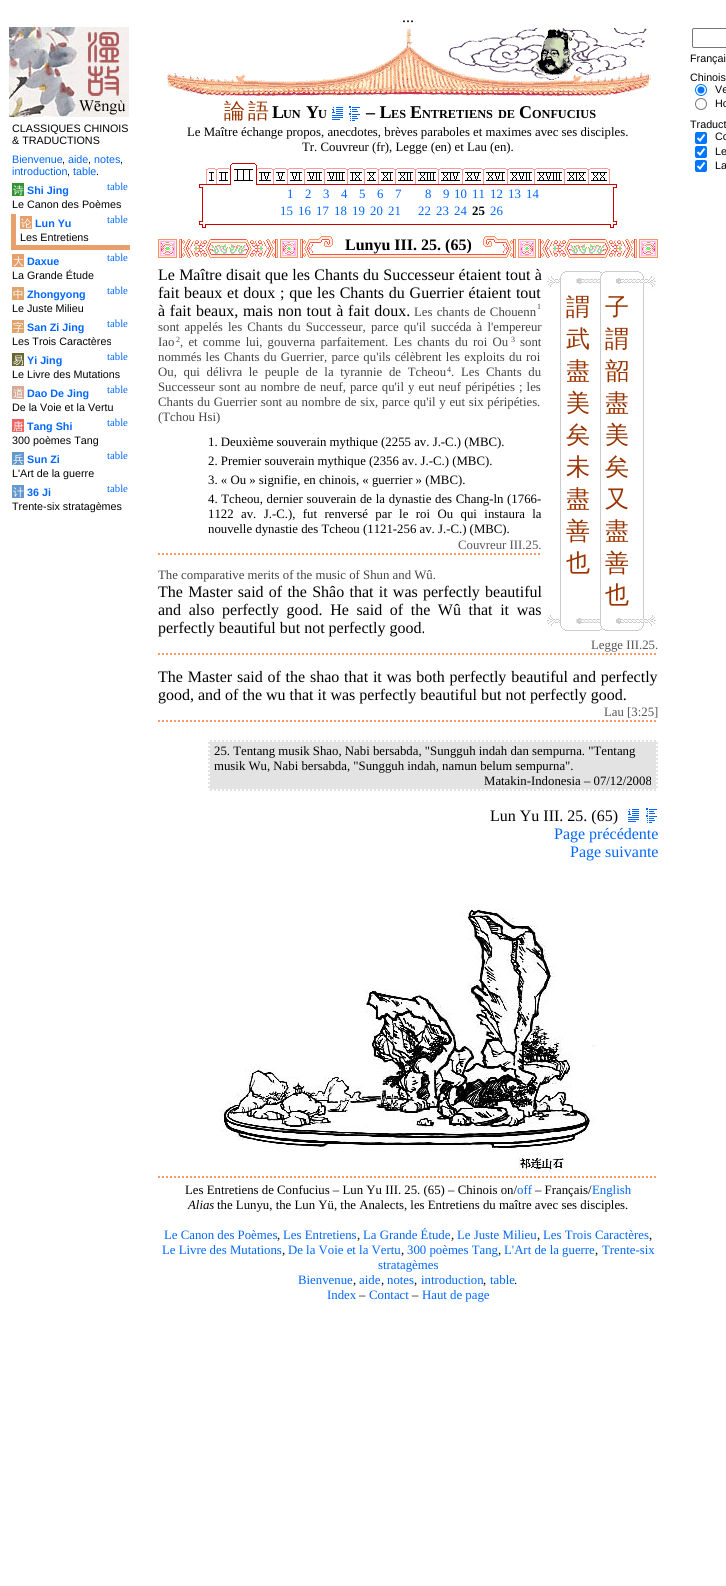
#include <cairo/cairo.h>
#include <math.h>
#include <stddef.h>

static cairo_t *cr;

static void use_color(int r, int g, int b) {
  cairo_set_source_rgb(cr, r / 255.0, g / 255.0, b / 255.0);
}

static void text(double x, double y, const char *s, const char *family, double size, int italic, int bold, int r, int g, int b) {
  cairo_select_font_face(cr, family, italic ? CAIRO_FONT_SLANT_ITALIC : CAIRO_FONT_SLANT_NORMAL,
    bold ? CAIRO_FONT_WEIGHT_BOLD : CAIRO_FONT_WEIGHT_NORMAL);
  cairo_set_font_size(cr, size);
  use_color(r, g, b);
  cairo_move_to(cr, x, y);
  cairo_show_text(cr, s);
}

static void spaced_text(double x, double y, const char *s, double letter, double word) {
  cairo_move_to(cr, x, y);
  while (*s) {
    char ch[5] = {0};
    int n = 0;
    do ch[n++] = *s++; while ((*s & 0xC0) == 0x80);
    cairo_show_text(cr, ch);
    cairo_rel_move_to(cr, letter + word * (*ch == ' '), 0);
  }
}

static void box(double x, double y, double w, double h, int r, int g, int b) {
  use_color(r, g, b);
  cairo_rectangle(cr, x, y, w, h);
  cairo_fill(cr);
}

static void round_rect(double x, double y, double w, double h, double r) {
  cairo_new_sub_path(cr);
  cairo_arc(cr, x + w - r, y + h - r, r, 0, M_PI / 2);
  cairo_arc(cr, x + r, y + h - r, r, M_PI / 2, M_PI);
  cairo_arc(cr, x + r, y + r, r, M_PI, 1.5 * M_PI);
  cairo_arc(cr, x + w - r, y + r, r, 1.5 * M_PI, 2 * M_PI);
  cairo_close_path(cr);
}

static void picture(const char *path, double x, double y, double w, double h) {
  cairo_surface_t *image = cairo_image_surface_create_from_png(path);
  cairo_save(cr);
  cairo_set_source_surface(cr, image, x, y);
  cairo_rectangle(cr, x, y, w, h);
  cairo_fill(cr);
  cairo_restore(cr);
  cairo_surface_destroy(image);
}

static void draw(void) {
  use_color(255, 255, 255);
  cairo_paint(cr);
  picture("img_01.png", 9, 27, 120, 90);
  box(12, 183, 12, 13, 50, 147, 51);
  box(11, 245, 119, 5, 231, 159, 107);
  box(11, 214, 5, 36, 231, 159, 107);
  box(20, 216, 12, 13, 231, 159, 107);
  box(12, 254, 12, 13, 231, 159, 107);
  box(12, 287, 12, 13, 223, 164, 108);
  box(12, 320, 12, 13, 223, 164, 108);
  box(12, 353, 12, 13, 102, 102, 51);
  box(12, 386, 12, 13, 213, 169, 148);
  box(12, 419, 12, 13, 235, 99, 99);
  box(12, 452, 12, 13, 101, 153, 205);
  box(12, 485, 12, 13, 101, 153, 205);
  picture("img_02.png", 167, 28, 484, 68);
  picture("img_03.png", 332, 107, 11, 13);
  picture("img_04.png", 349, 106, 11, 15);
  box(199, 184, 7, 1, 204, 0, 0);
  picture("img_05.png", 206, 169, 1, 16);
  picture("img_06.png", 207, 168, 9, 17);
  picture("img_05.png", 216, 169, 1, 16);
  picture("img_07.png", 217, 168, 13, 17);
  picture("img_08.png", 230, 163, 27, 22);
  picture("img_09.png", 257, 168, 16, 17);
  picture("img_05.png", 273, 169, 1, 16);
  picture("img_10.png", 274, 168, 13, 17);
  picture("img_05.png", 287, 169, 1, 16);
  picture("img_11.png", 288, 168, 16, 17);
  picture("img_05.png", 304, 169, 1, 16);
  picture("img_12.png", 305, 168, 19, 17);
  picture("img_05.png", 324, 169, 1, 16);
  picture("img_13.png", 325, 168, 22, 17);
  picture("img_05.png", 347, 169, 1, 16);
  picture("img_14.png", 348, 168, 16, 17);
  picture("img_05.png", 364, 169, 1, 16);
  picture("img_15.png", 365, 168, 13, 17);
  picture("img_05.png", 378, 169, 1, 16);
  picture("img_16.png", 379, 168, 16, 17);
  picture("img_05.png", 395, 169, 1, 16);
  picture("img_17.png", 396, 168, 19, 17);
  picture("img_05.png", 415, 169, 1, 16);
  picture("img_18.png", 416, 168, 22, 17);
  picture("img_05.png", 438, 169, 1, 16);
  picture("img_19.png", 439, 168, 23, 17);
  picture("img_05.png", 462, 169, 1, 16);
  picture("img_20.png", 463, 168, 20, 17);
  picture("img_05.png", 483, 169, 1, 16);
  picture("img_21.png", 484, 168, 23, 17);
  picture("img_05.png", 507, 169, 1, 16);
  picture("img_22.png", 508, 168, 26, 17);
  picture("img_05.png", 534, 169, 1, 16);
  picture("img_23.png", 535, 168, 29, 17);
  picture("img_05.png", 564, 169, 1, 16);
  picture("img_24.png", 565, 168, 23, 17);
  picture("img_05.png", 588, 169, 1, 16);
  picture("img_25.png", 589, 168, 20, 17);
  picture("img_05.png", 609, 169, 1, 16);
  box(610, 184, 7, 1, 204, 0, 0);
  picture("img_26.png", 199, 185, 4, 36);
  picture("img_27.png", 613, 185, 4, 36);
  picture("img_28.png", 199, 221, 7, 7);
  box(206, 224, 404, 1, 204, 0, 0);
  picture("img_29.png", 610, 221, 7, 7);
  picture("img_30.png", 158, 236, 500, 22);
  cairo_new_path(cr);
  cairo_move_to(cr, 158, 554);
  cairo_line_to(cr, 658, 554);
  use_color(255, 153, 102);
  cairo_set_dash(cr, (double[]){2, 2}, 2, 0);
  cairo_stroke(cr);
  box(542, 553, 114, 2, 255, 255, 255);
  picture("img_31.png", 547, 276, 13, 11);
  picture("img_32.png", 565, 271, 35, 13);
  picture("img_33.png", 560, 271, 5, 20);
  picture("img_34.png", 605, 271, 34, 13);
  picture("img_35.png", 600, 271, 5, 20);
  picture("img_36.png", 639, 272, 17, 19);
  box(560, 291, 1, 320, 204, 204, 204);
  box(600, 291, 1, 320, 204, 204, 204);
  box(643, 291, 1, 320, 204, 204, 204);
  picture("img_37.png", 547, 615, 13, 11);
  picture("img_38.png", 565, 618, 35, 13);
  picture("img_39.png", 560, 611, 5, 20);
  picture("img_40.png", 605, 618, 34, 13);
  picture("img_41.png", 600, 611, 5, 20);
  picture("img_42.png", 639, 611, 17, 19);
  cairo_new_path(cr);
  cairo_move_to(cr, 158, 654);
  cairo_line_to(cr, 658, 654);
  use_color(255, 153, 102);
  cairo_stroke(cr);
  cairo_new_path(cr);
  cairo_move_to(cr, 158, 721);
  cairo_line_to(cr, 658, 721);
  cairo_stroke(cr);
  box(208, 740, 450, 51, 227, 227, 227);
  cairo_new_path(cr);
  cairo_move_to(cr, 208, 741);
  cairo_line_to(cr, 658, 741);
  use_color(255, 255, 255);
  cairo_stroke(cr);
  cairo_new_path(cr);
  cairo_move_to(cr, 657, 740);
  cairo_line_to(cr, 657, 791);
  cairo_stroke(cr);
  cairo_new_path(cr);
  cairo_move_to(cr, 208, 790);
  cairo_line_to(cr, 658, 790);
  cairo_stroke(cr);
  cairo_new_path(cr);
  cairo_move_to(cr, 209, 740);
  cairo_line_to(cr, 209, 791);
  cairo_stroke(cr);
  picture("img_03.png", 628, 809, 11, 13);
  picture("img_04.png", 646, 808, 11, 15);
  picture("img_43.png", 220, 909, 376, 264);
  cairo_new_path(cr);
  cairo_move_to(cr, 158, 1177);
  cairo_line_to(cr, 658, 1177);
  use_color(255, 153, 102);
  cairo_stroke(cr);
  round_rect(692.5, 28.5, 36, 19, 1.5);
  use_color(118, 118, 118);
  cairo_set_line_width(cr, 1);
  cairo_set_dash(cr, NULL, 0, 0);
  cairo_stroke(cr);
  cairo_arc(cr, 701, 90, 5.5, 0, 2 * M_PI);
  use_color(0, 117, 255);
  cairo_stroke(cr);
  cairo_arc(cr, 701, 90, 3.5, 0, 2 * M_PI);
  cairo_fill(cr);
  cairo_arc(cr, 701, 104, 5.5, 0, 2 * M_PI);
  use_color(118, 118, 118);
  cairo_stroke(cr);
  use_color(0, 117, 255);
  round_rect(695, 132, 12, 12, 2);
  cairo_fill(cr);
  cairo_new_path(cr);
  cairo_move_to(cr, 697.5, 138);
  cairo_line_to(cr, 700, 140.5);
  cairo_line_to(cr, 704.5, 134.5);
  use_color(255, 255, 255);
  cairo_set_line_width(cr, 1.9);
  cairo_stroke(cr);
  use_color(0, 117, 255);
  round_rect(695, 146, 12, 12, 2);
  cairo_fill(cr);
  cairo_new_path(cr);
  cairo_move_to(cr, 697.5, 152);
  cairo_line_to(cr, 700, 154.5);
  cairo_line_to(cr, 704.5, 148.5);
  use_color(255, 255, 255);
  cairo_stroke(cr);
  use_color(0, 117, 255);
  round_rect(695, 160, 12, 12, 2);
  cairo_fill(cr);
  cairo_new_path(cr);
  cairo_move_to(cr, 697.5, 166);
  cairo_line_to(cr, 700, 168.5);
  cairo_line_to(cr, 704.5, 162.5);
  use_color(255, 255, 255);
  cairo_stroke(cr);
  text(402, 22, "...", "Liberation Serif", 16, 0, 0, 0, 0, 0);
  text(12, 132, "CLASSIQUES CHINOIS", "Liberation Sans", 10.75, 0, 0, 0, 0, 0);
  text(12, 144, "& TRADUCTIONS", "Liberation Sans", 10.75, 0, 0, 0, 0, 0);
  text(12, 163, "Bienvenue", "Liberation Sans", 10.75, 0, 0, 0, 102, 255);
  text(62, 163, ",", "Liberation Sans", 10.75, 0, 0, 0, 0, 0);
  text(68, 163, "aide", "Liberation Sans", 10.75, 0, 0, 0, 102, 255);
  text(88, 163, ",", "Liberation Sans", 10.75, 0, 0, 0, 0, 0);
  text(94, 163, "notes", "Liberation Sans", 10.75, 0, 0, 0, 102, 255);
  text(120, 163, ",", "Liberation Sans", 10.75, 0, 0, 0, 0, 0);
  text(12, 175, "introduction", "Liberation Sans", 10.75, 0, 0, 0, 102, 255);
  text(67, 175, ",", "Liberation Sans", 10.75, 0, 0, 0, 0, 0);
  text(73, 175, "table", "Liberation Sans", 10.75, 0, 0, 0, 102, 255);
  text(96, 175, ".", "Liberation Sans", 10.75, 0, 0, 0, 0, 0);
  text(107, 190, "table", "Liberation Serif", 10.75, 0, 0, 0, 102, 255);
  text(13, 194, "诗", "WenQuanYi Zen Hei Medium", 10.75, 0, 0, 255, 255, 255);
  text(27, 194, "Shi Jing", "Liberation Sans", 10.75, 0, 1, 0, 102, 255);
  text(12, 208, "Le Canon des Poèmes", "Liberation Sans", 10.75, 0, 0, 0, 0, 0);
  text(21, 227, "论", "WenQuanYi Zen Hei Medium", 10.75, 0, 0, 255, 255, 255);
  text(35, 227, "Lun Yu", "Liberation Sans", 10.75, 0, 1, 0, 102, 255);
  text(20, 241, "Les Entretiens", "Liberation Sans", 10.75, 0, 0, 0, 0, 0);
  text(107, 223, "table", "Liberation Serif", 10.75, 0, 0, 0, 102, 255);
  text(13, 265, "大", "WenQuanYi Zen Hei Medium", 10.75, 0, 0, 255, 255, 255);
  text(27, 265, "Daxue", "Liberation Sans", 10.75, 0, 1, 0, 102, 255);
  text(12, 279, "La Grande Étude", "Liberation Sans", 10.75, 0, 0, 0, 0, 0);
  text(107, 261, "table", "Liberation Serif", 10.75, 0, 0, 0, 102, 255);
  text(13, 298, "中", "WenQuanYi Zen Hei Medium", 10.75, 0, 0, 255, 255, 255);
  text(27, 298, "Zhongyong", "Liberation Sans", 10.75, 0, 1, 0, 102, 255);
  text(12, 312, "Le Juste Milieu", "Liberation Sans", 10.75, 0, 0, 0, 0, 0);
  text(107, 294, "table", "Liberation Serif", 10.75, 0, 0, 0, 102, 255);
  text(13, 331, "字", "WenQuanYi Zen Hei Medium", 10.75, 0, 0, 255, 255, 255);
  text(27, 331, "San Zi Jing", "Liberation Sans", 10.75, 0, 1, 0, 102, 255);
  text(12, 345, "Les Trois Caractères", "Liberation Sans", 10.75, 0, 0, 0, 0, 0);
  text(107, 327, "table", "Liberation Serif", 10.75, 0, 0, 0, 102, 255);
  text(107, 360, "table", "Liberation Serif", 10.75, 0, 0, 0, 102, 255);
  text(13, 364, "易", "WenQuanYi Zen Hei Medium", 10.75, 0, 0, 255, 255, 255);
  text(27, 364, "Yi Jing", "Liberation Sans", 10.75, 0, 1, 0, 102, 255);
  text(12, 378, "Le Livre des Mutations", "Liberation Sans", 10.75, 0, 0, 0, 0, 0);
  text(13, 397, "道", "WenQuanYi Zen Hei Medium", 10.75, 0, 0, 255, 255, 255);
  text(27, 397, "Dao De Jing", "Liberation Sans", 10.75, 0, 1, 0, 102, 255);
  text(12, 411, "De la Voie et la Vertu", "Liberation Sans", 10.75, 0, 0, 0, 0, 0);
  text(107, 393, "table", "Liberation Serif", 10.75, 0, 0, 0, 102, 255);
  text(13, 430, "唐", "WenQuanYi Zen Hei Medium", 10.75, 0, 0, 255, 255, 255);
  text(27, 430, "Tang Shi", "Liberation Sans", 10.75, 0, 1, 0, 102, 255);
  text(12, 444, "300 poèmes Tang", "Liberation Sans", 10.75, 0, 0, 0, 0, 0);
  text(107, 426, "table", "Liberation Serif", 10.75, 0, 0, 0, 102, 255);
  text(13, 463, "兵", "WenQuanYi Zen Hei Medium", 10.75, 0, 0, 255, 255, 255);
  text(27, 463, "Sun Zi", "Liberation Sans", 10.75, 0, 1, 0, 102, 255);
  text(12, 477, "L'Art de la guerre", "Liberation Sans", 10.75, 0, 0, 0, 0, 0);
  text(107, 459, "table", "Liberation Serif", 10.75, 0, 0, 0, 102, 255);
  text(107, 492, "table", "Liberation Serif", 10.75, 0, 0, 0, 102, 255);
  text(13, 496, "计", "WenQuanYi Zen Hei Medium", 10.75, 0, 0, 255, 255, 255);
  text(27, 496, "36 Ji", "Liberation Sans", 10.75, 0, 1, 0, 102, 255);
  text(12, 510, "Trente-six stratagèmes", "Liberation Sans", 10.75, 0, 0, 0, 0, 0);
  text(224, 118, "論", "WenQuanYi Zen Hei Medium", 21, 0, 0, 153, 51, 0);
  text(248, 118, "語", "WenQuanYi Zen Hei Medium", 21, 0, 0, 153, 51, 0);
  text(272, 118, "L", "Liberation Serif", 18, 0, 1, 0, 0, 0);
  text(283, 118, "UN", "Liberation Serif", 12.25, 0, 1, 0, 0, 0);
  text(306, 118, "Y", "Liberation Serif", 18, 0, 1, 0, 0, 0);
  text(318, 118, "U", "Liberation Serif", 12.25, 0, 1, 0, 0, 0);
  text(366, 118, "– L", "Liberation Serif", 18, 0, 1, 0, 0, 0);
  text(391, 118, "ES", "Liberation Serif", 12.25, 0, 1, 0, 0, 0);
  text(410, 118, "E", "Liberation Serif", 18, 0, 1, 0, 0, 0);
  text(422, 118, "NTRETIENS", "Liberation Serif", 12.25, 0, 1, 0, 0, 0);
  text(498, 118, "DE", "Liberation Serif", 12.25, 0, 1, 0, 0, 0);
  text(519, 118, "C", "Liberation Serif", 18, 0, 1, 0, 0, 0);
  text(532, 118, "ONFUCIUS", "Liberation Serif", 12.25, 0, 1, 0, 0, 0);
  text(187, 136, "Le Maître échange propos, anecdotes, brèves paraboles et maximes avec ses disciples.", "Liberation Serif", 12.8, 0, 0, 0, 0, 0);
  text(302, 151, "Tr. Couvreur (fr), Legge (en) et Lau (en).", "Liberation Serif", 12.8, 0, 0, 0, 0, 0);
  text(287, 198, "1", "Liberation Serif", 12.8, 0, 0, 0, 102, 255);
  text(305, 198, "2", "Liberation Serif", 12.8, 0, 0, 0, 102, 255);
  text(323, 198, "3", "Liberation Serif", 12.8, 0, 0, 0, 102, 255);
  text(341, 198, "4", "Liberation Serif", 12.8, 0, 0, 0, 102, 255);
  text(359, 198, "5", "Liberation Serif", 12.8, 0, 0, 0, 102, 255);
  text(377, 198, "6", "Liberation Serif", 12.8, 0, 0, 0, 102, 255);
  text(395, 198, "7", "Liberation Serif", 12.8, 0, 0, 0, 102, 255);
  text(425, 198, "8", "Liberation Serif", 12.8, 0, 0, 0, 102, 255);
  text(443, 198, "9", "Liberation Serif", 12.8, 0, 0, 0, 102, 255);
  text(454, 198, "10", "Liberation Serif", 12.8, 0, 0, 0, 102, 255);
  text(472, 198, "11", "Liberation Serif", 12.8, 0, 0, 0, 102, 255);
  text(490, 198, "12", "Liberation Serif", 12.8, 0, 0, 0, 102, 255);
  text(508, 198, "13", "Liberation Serif", 12.8, 0, 0, 0, 102, 255);
  text(526, 198, "14", "Liberation Serif", 12.8, 0, 0, 0, 102, 255);
  text(280, 215, "15", "Liberation Serif", 12.8, 0, 0, 0, 102, 255);
  text(298, 215, "16", "Liberation Serif", 12.8, 0, 0, 0, 102, 255);
  text(316, 215, "17", "Liberation Serif", 12.8, 0, 0, 0, 102, 255);
  text(334, 215, "18", "Liberation Serif", 12.8, 0, 0, 0, 102, 255);
  text(352, 215, "19", "Liberation Serif", 12.8, 0, 0, 0, 102, 255);
  text(370, 215, "20", "Liberation Serif", 12.8, 0, 0, 0, 102, 255);
  text(388, 215, "21", "Liberation Serif", 12.8, 0, 0, 0, 102, 255);
  text(418, 215, "22", "Liberation Serif", 12.8, 0, 0, 0, 102, 255);
  text(436, 215, "23", "Liberation Serif", 12.8, 0, 0, 0, 102, 255);
  text(454, 215, "24", "Liberation Serif", 12.8, 0, 0, 0, 102, 255);
  text(472, 215, "25", "Liberation Serif", 12.8, 0, 1, 0, 0, 0);
  text(490, 215, "26", "Liberation Serif", 12.8, 0, 0, 0, 102, 255);
  text(345, 250, "Lunyu III. 25. (65)", "Liberation Serif", 16, 0, 1, 0, 0, 0);
  cairo_select_font_face(cr, "Liberation Serif", CAIRO_FONT_SLANT_NORMAL, CAIRO_FONT_WEIGHT_NORMAL);
  spaced_text(158, 280, "Le Maître disait que les Chants du Successeur étaient tout à", 0, 0.25);
  spaced_text(158, 298, "fait beaux et doux ; que les Chants du Guerrier étaient tout", 0, 0.75);
  spaced_text(158, 316, "à fait beaux, mais non tout à fait doux.", 0, 0.75);
  cairo_set_font_size(cr, 12.8);
  use_color(68, 68, 68);
  spaced_text(414, 316, "Les chants de Chouenn", 0, 1);
  text(537, 309, "1", "Liberation Serif", 8, 0, 0, 68, 68, 68);
  cairo_set_font_size(cr, 12.8);
  spaced_text(158, 331, "sont appelés les Chants du Successeur, parce qu'il succéda à l'empereur", 0, 1.9);
  text(158, 346, "Iao", "Liberation Serif", 12.8, 0, 0, 68, 68, 68);
  text(176, 342, "2", "Liberation Serif", 8, 0, 0, 68, 68, 68);
  cairo_set_font_size(cr, 12.8);
  spaced_text(180, 346, ", et comme lui, gouverna parfaitement. Les chants du roi Ou", 0, 2);
  text(511, 342, "3", "Liberation Serif", 8, 0, 0, 68, 68, 68);
  text(520, 346, "sont", "Liberation Serif", 12.8, 0, 0, 68, 68, 68);
  spaced_text(158, 361, "nommés les Chants du Guerrier, parce qu'ils célèbrent les exploits du roi", 0, 1);
  spaced_text(158, 376, "Ou, qui délivra le peuple de la tyrannie de Tcheou", 0, 3.5);
  text(447, 372, "4", "Liberation Serif", 8, 0, 0, 68, 68, 68);
  cairo_set_font_size(cr, 12.8);
  spaced_text(451, 376, ". Les Chants du", 0, 3.5);
  spaced_text(158, 391, "Successeur sont au nombre de neuf, parce qu'il y eut neuf péripéties ; les", 0, 0.9);
  spaced_text(158, 406, "Chants du Guerrier sont au nombre de six, parce qu'il y eut six péripéties.", 0, 0.5);
  text(158, 421, "(Tchou Hsi)", "Liberation Serif", 12.8, 0, 0, 68, 68, 68);
  text(208, 446, "1. Deuxième souverain mythique (2255 av. J.-C.) (MBC).", "Liberation Serif", 12.8, 0, 0, 0, 0, 0);
  text(208, 465, "2. Premier souverain mythique (2356 av. J.-C.) (MBC).", "Liberation Serif", 12.8, 0, 0, 0, 0, 0);
  text(208, 484, "3. « Ou » signifie, en chinois, « guerrier » (MBC).", "Liberation Serif", 12.8, 0, 0, 0, 0, 0);
  spaced_text(208, 503, "4. Tcheou, dernier souverain de la dynastie des Chang-ln (1766-", 0, 0.5);
  spaced_text(208, 518, "1122 av. J.-C.), fut renversé par le roi Ou qui instaura la", 0, 4.25);
  text(208, 533, "nouvelle dynastie des Tcheou (1121-256 av. J.-C.) (MBC).", "Liberation Serif", 12.8, 0, 0, 0, 0, 0);
  text(458, 549, "Couvreur III.25.", "Liberation Serif", 12.8, 0, 0, 85, 85, 85);
  text(566, 315, "謂", "WenQuanYi Zen Hei Medium", 24, 0, 0, 153, 51, 0);
  text(566, 347, "武", "WenQuanYi Zen Hei Medium", 24, 0, 0, 153, 51, 0);
  text(566, 379, "盡", "WenQuanYi Zen Hei Medium", 24, 0, 0, 153, 51, 0);
  text(566, 411, "美", "WenQuanYi Zen Hei Medium", 24, 0, 0, 153, 51, 0);
  text(566, 443, "矣", "WenQuanYi Zen Hei Medium", 24, 0, 0, 153, 51, 0);
  text(566, 475, "未", "WenQuanYi Zen Hei Medium", 24, 0, 0, 153, 51, 0);
  text(566, 507, "盡", "WenQuanYi Zen Hei Medium", 24, 0, 0, 153, 51, 0);
  text(566, 539, "善", "WenQuanYi Zen Hei Medium", 24, 0, 0, 153, 51, 0);
  text(566, 571, "也", "WenQuanYi Zen Hei Medium", 24, 0, 0, 153, 51, 0);
  text(605, 315, "子", "WenQuanYi Zen Hei Medium", 24, 0, 0, 153, 51, 0);
  text(605, 347, "謂", "WenQuanYi Zen Hei Medium", 24, 0, 0, 153, 51, 0);
  text(605, 379, "韶", "WenQuanYi Zen Hei Medium", 24, 0, 0, 153, 51, 0);
  text(605, 411, "盡", "WenQuanYi Zen Hei Medium", 24, 0, 0, 153, 51, 0);
  text(605, 443, "美", "WenQuanYi Zen Hei Medium", 24, 0, 0, 153, 51, 0);
  text(605, 475, "矣", "WenQuanYi Zen Hei Medium", 24, 0, 0, 153, 51, 0);
  text(605, 507, "又", "WenQuanYi Zen Hei Medium", 24, 0, 0, 153, 51, 0);
  text(605, 539, "盡", "WenQuanYi Zen Hei Medium", 24, 0, 0, 153, 51, 0);
  text(605, 571, "善", "WenQuanYi Zen Hei Medium", 24, 0, 0, 153, 51, 0);
  text(605, 603, "也", "WenQuanYi Zen Hei Medium", 24, 0, 0, 153, 51, 0);
  text(158, 579, "The comparative merits of the music of Shun and Wû.", "Liberation Serif", 12.8, 0, 0, 68, 68, 68);
  cairo_set_font_size(cr, 16);
  use_color(0, 0, 0);
  spaced_text(158, 597, "The Master said of the Shâo that it was perfectly beautiful", 0, 1.25);
  spaced_text(158, 615, "and also perfectly good. He said of the Wû that it was", 0, 3.6);
  text(158, 633, "perfectly beautiful but not perfectly good.", "Liberation Serif", 16, 0, 0, 0, 0, 0);
  text(591, 649, "Legge III.25.", "Liberation Serif", 12.8, 0, 0, 85, 85, 85);
  cairo_set_font_size(cr, 16);
  use_color(0, 0, 0);
  spaced_text(158, 682, "The Master said of the shao that it was both perfectly beautiful and perfectly", 0, 0.8);
  text(158, 700, "good, and of the wu that it was perfectly beautiful but not perfectly good.", "Liberation Serif", 16, 0, 0, 0, 0, 0);
  text(604, 716, "Lau [3:25]", "Liberation Serif", 12.8, 0, 0, 85, 85, 85);
  text(214, 755, "25. Tentang musik Shao, Nabi bersabda, \"Sungguh indah dan sempurna. \"Tentang", "Liberation Serif", 12.8, 0, 0, 0, 0, 0);
  text(214, 770, "musik Wu, Nabi bersabda, \"Sungguh indah, namun belum sempurna\".", "Liberation Serif", 12.8, 0, 0, 0, 0, 0);
  text(484, 785, "Matakin-Indonesia – 07/12/2008", "Liberation Serif", 12.8, 0, 0, 0, 0, 0);
  text(490, 821, "Lun Yu III. 25. (65)", "Liberation Serif", 16, 0, 0, 0, 0, 0);
  text(554, 839, "Page précédente", "Liberation Serif", 16, 0, 0, 0, 102, 255);
  text(570, 857, "Page suivante", "Liberation Serif", 16, 0, 0, 0, 102, 255);
  text(185, 1194, "Les Entretiens de Confucius – Lun Yu III. 25. (65) – Chinois on/", "Liberation Serif", 12.8, 0, 0, 0, 0, 0);
  text(517, 1194, "off", "Liberation Serif", 12.8, 0, 0, 0, 102, 255);
  text(535, 1194, "– Français/", "Liberation Serif", 12.8, 0, 0, 0, 0, 0);
  text(592, 1194, "English", "Liberation Serif", 12.8, 0, 0, 0, 102, 255);
  text(188, 1209, "Alias", "Liberation Serif", 12.8, 1, 0, 0, 0, 0);
  text(217, 1209, "the Lunyu, the Lun Yü, the Analects, les Entretiens du maître avec ses disciples.", "Liberation Serif", 12.8, 0, 0, 0, 0, 0);
  text(164, 1239, "Le Canon des Poèmes", "Liberation Serif", 12.8, 0, 0, 0, 102, 255);
  text(277, 1239, ",", "Liberation Serif", 12.8, 0, 0, 0, 0, 0);
  text(283, 1239, "Les Entretiens", "Liberation Serif", 12.8, 0, 0, 0, 102, 255);
  text(357, 1239, ",", "Liberation Serif", 12.8, 0, 0, 0, 0, 0);
  text(363, 1239, "La Grande Étude", "Liberation Serif", 12.8, 0, 0, 0, 102, 255);
  text(451, 1239, ",", "Liberation Serif", 12.8, 0, 0, 0, 0, 0);
  text(457, 1239, "Le Juste Milieu", "Liberation Serif", 12.8, 0, 0, 0, 102, 255);
  text(537, 1239, ",", "Liberation Serif", 12.8, 0, 0, 0, 0, 0);
  text(543, 1239, "Les Trois Caractères", "Liberation Serif", 12.8, 0, 0, 0, 102, 255);
  text(649, 1239, ",", "Liberation Serif", 12.8, 0, 0, 0, 0, 0);
  text(162, 1254, "Le Livre des Mutations", "Liberation Serif", 12.8, 0, 0, 0, 102, 255);
  text(282, 1254, ",", "Liberation Serif", 12.8, 0, 0, 0, 0, 0);
  text(288, 1254, "De la Voie et la Vertu", "Liberation Serif", 12.8, 0, 0, 0, 102, 255);
  text(401, 1254, ",", "Liberation Serif", 12.8, 0, 0, 0, 0, 0);
  text(407, 1254, "300 poèmes Tang", "Liberation Serif", 12.8, 0, 0, 0, 102, 255);
  text(498, 1254, ",", "Liberation Serif", 12.8, 0, 0, 0, 0, 0);
  text(504, 1254, "L'Art de la guerre", "Liberation Serif", 12.8, 0, 0, 0, 102, 255);
  text(595, 1254, ",", "Liberation Serif", 12.8, 0, 0, 0, 0, 0);
  text(602, 1254, "Trente-six", "Liberation Serif", 12.8, 0, 0, 0, 102, 255);
  text(378, 1269, "stratagèmes", "Liberation Serif", 12.8, 0, 0, 0, 102, 255);
  text(298, 1284, "Bienvenue", "Liberation Serif", 12.8, 0, 0, 0, 102, 255);
  text(353, 1284, ",", "Liberation Serif", 12.8, 0, 0, 0, 0, 0);
  text(359, 1284, "aide", "Liberation Serif", 12.8, 0, 0, 0, 102, 255);
  text(381, 1284, ",", "Liberation Serif", 12.8, 0, 0, 0, 0, 0);
  text(387, 1284, "notes", "Liberation Serif", 12.8, 0, 0, 0, 102, 255);
  text(414, 1284, ",", "Liberation Serif", 12.8, 0, 0, 0, 0, 0);
  text(421, 1284, "introduction", "Liberation Serif", 12.8, 0, 0, 0, 102, 255);
  text(483, 1284, ",", "Liberation Serif", 12.8, 0, 0, 0, 0, 0);
  text(490, 1284, "table", "Liberation Serif", 12.8, 0, 0, 0, 102, 255);
  text(514, 1284, ".", "Liberation Serif", 12.8, 0, 0, 0, 0, 0);
  text(327, 1299, "Index", "Liberation Serif", 12.8, 0, 0, 0, 102, 255);
  text(359, 1299, "–", "Liberation Serif", 12.8, 0, 0, 0, 0, 0);
  text(369, 1299, "Contact", "Liberation Serif", 12.8, 0, 0, 0, 102, 255);
  text(412, 1299, "–", "Liberation Serif", 12.8, 0, 0, 0, 0, 0);
  text(422, 1299, "Haut de page", "Liberation Serif", 12.8, 0, 0, 0, 102, 255);
  text(690, 62, "Françai", "Liberation Sans", 10.75, 0, 0, 0, 0, 0);
  text(690, 81, "Chinois", "Liberation Sans", 10.75, 0, 0, 0, 0, 0);
  text(715, 93, "Ve", "Liberation Sans", 10.75, 0, 0, 0, 0, 0);
  text(715, 107, "Ho", "Liberation Sans", 10.75, 0, 0, 0, 0, 0);
  text(690, 128, "Traduct", "Liberation Sans", 10.75, 0, 0, 0, 0, 0);
  text(715, 140, "Co", "Liberation Sans", 10.75, 0, 0, 0, 0, 0);
  text(715, 155, "Le", "Liberation Sans", 10.75, 0, 0, 0, 0, 0);
  text(715, 169, "La", "Liberation Sans", 10.75, 0, 0, 0, 0, 0);
}

int main(void) {
  cairo_surface_t *surface = cairo_image_surface_create(CAIRO_FORMAT_RGB24, 726, 1586);
  cr = cairo_create(surface);
  cairo_font_options_t *options = cairo_font_options_create();
  cairo_font_options_set_hint_metrics(options, CAIRO_HINT_METRICS_OFF);
  cairo_font_options_set_hint_style(options, CAIRO_HINT_STYLE_NONE);
  cairo_set_font_options(cr, options);
  cairo_set_miter_limit(cr, 4);
  draw();
  cairo_surface_write_to_png(surface, "out.png");
  cairo_font_options_destroy(options);
  cairo_destroy(cr);
  cairo_surface_destroy(surface);
  return 0;
}
